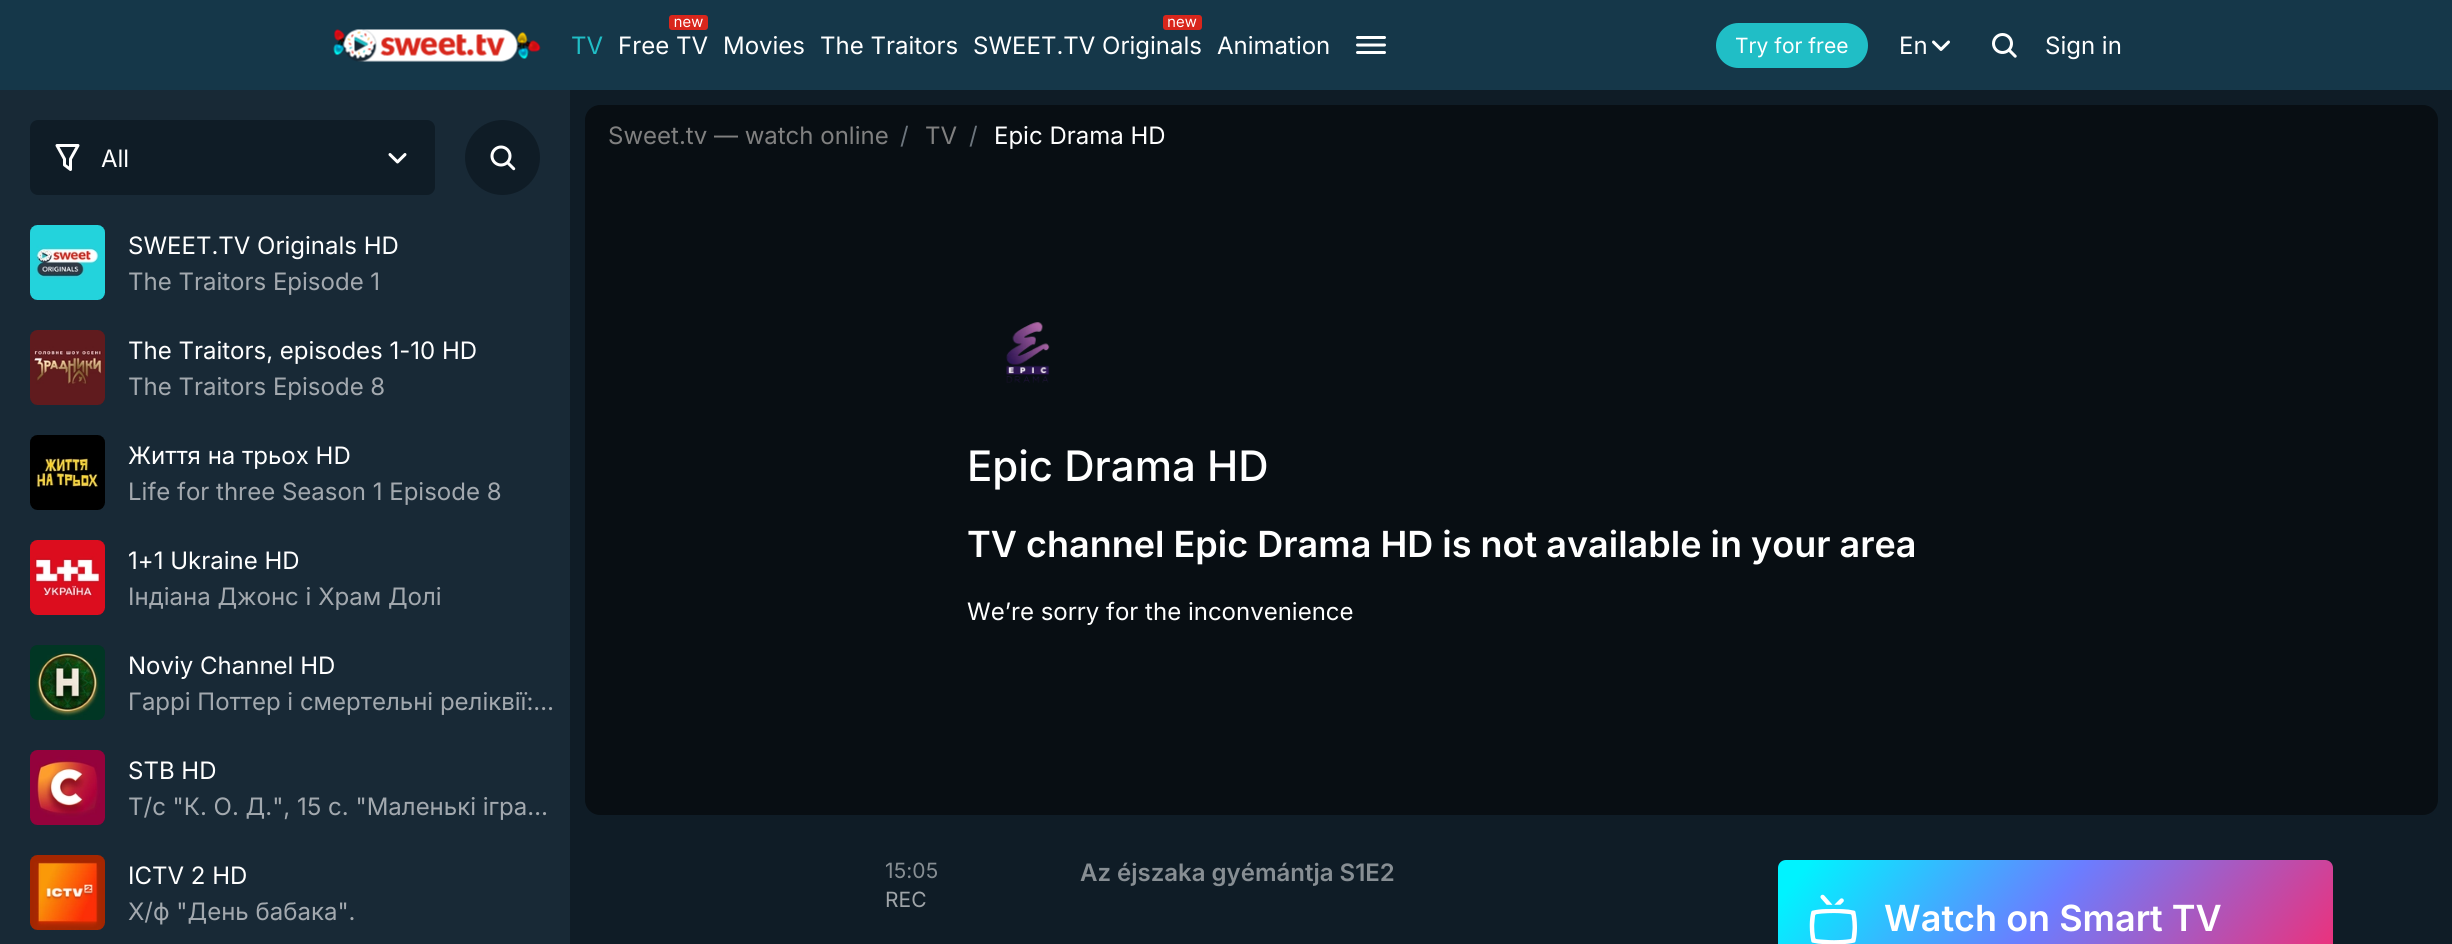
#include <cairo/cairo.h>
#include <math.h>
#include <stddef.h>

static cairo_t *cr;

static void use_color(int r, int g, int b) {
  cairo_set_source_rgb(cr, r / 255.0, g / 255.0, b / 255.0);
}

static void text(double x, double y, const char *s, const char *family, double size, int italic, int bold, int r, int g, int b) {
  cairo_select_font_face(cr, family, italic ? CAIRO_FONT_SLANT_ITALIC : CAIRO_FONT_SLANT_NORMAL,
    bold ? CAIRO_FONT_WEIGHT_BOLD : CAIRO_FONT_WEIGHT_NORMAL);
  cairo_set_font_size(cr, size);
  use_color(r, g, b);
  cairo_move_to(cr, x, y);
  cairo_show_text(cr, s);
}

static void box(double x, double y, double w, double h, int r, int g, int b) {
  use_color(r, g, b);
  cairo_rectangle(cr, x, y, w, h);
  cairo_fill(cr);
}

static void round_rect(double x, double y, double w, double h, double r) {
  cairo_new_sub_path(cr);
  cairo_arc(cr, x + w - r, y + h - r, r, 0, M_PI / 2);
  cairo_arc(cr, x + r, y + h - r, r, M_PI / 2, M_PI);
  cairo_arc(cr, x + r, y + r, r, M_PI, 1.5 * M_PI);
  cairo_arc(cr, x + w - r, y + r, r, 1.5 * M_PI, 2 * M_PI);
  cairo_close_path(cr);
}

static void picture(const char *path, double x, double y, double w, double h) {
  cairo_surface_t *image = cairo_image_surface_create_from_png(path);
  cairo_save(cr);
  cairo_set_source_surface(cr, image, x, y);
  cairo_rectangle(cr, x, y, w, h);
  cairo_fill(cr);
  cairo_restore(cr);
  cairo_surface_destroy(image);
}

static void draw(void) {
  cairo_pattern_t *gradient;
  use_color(15, 28, 38);
  cairo_paint(cr);
  box(0, 0, 2452, 90, 21, 55, 73);
  picture("img_01.png", 333, 29, 208, 33);
  picture("img_02.png", 669, 15, 39, 15);
  picture("img_03.png", 1163, 15, 39, 15);
  cairo_new_path(cr);
  cairo_move_to(cr, 1357.5, 37.5);
  cairo_line_to(cr, 1384.5, 37.5);
  cairo_move_to(cr, 1357.5, 45);
  cairo_line_to(cr, 1384.5, 45);
  cairo_move_to(cr, 1357.5, 52.5);
  cairo_line_to(cr, 1384.5, 52.5);
  use_color(255, 255, 255);
  cairo_set_line_width(cr, 3);
  cairo_set_line_cap(cr, CAIRO_LINE_CAP_ROUND);
  cairo_stroke(cr);
  use_color(32, 190, 198);
  round_rect(1717, 24, 150, 43, 21.5);
  cairo_fill_preserve(cr);
  cairo_set_line_width(cr, 2);
  cairo_set_line_cap(cr, CAIRO_LINE_CAP_BUTT);
  cairo_stroke(cr);
  picture("img_04.png", 1932, 40, 18, 11);
  picture("img_05.png", 1992, 33, 25, 25);
  box(0, 90, 570, 854, 24, 41, 54);
  use_color(15, 28, 38);
  round_rect(30, 120, 405, 75, 8);
  cairo_fill(cr);
  cairo_new_path(cr);
  cairo_move_to(cr, 78, 145.5);
  cairo_line_to(cr, 57, 145.5);
  cairo_line_to(cr, 64.5, 159);
  cairo_line_to(cr, 64.5, 165);
  cairo_line_to(cr, 70.5, 169.5);
  cairo_line_to(cr, 70.5, 159);
  cairo_close_path(cr);
  use_color(255, 255, 255);
  cairo_set_line_width(cr, 3);
  cairo_set_line_join(cr, CAIRO_LINE_JOIN_ROUND);
  cairo_stroke(cr);
  picture("img_06.png", 388, 153, 19, 11);
  use_color(15, 28, 38);
  cairo_arc(cr, 502.5, 157.5, 37.5, 0, 2 * M_PI);
  cairo_fill(cr);
  picture("img_07.png", 490, 145, 26, 26);
  picture("img_08.png", 30, 225, 75, 75);
  picture("img_09.png", 30, 330, 75, 75);
  picture("img_10.png", 30, 435, 75, 75);
  picture("img_11.png", 30, 540, 75, 75);
  picture("img_12.png", 30, 645, 75, 75);
  picture("img_13.png", 30, 750, 75, 75);
  picture("img_14.png", 30, 855, 75, 75);
  use_color(8, 14, 19);
  round_rect(585, 105, 1853, 710, 15);
  cairo_fill(cr);
  picture("img_15.png", 1006, 322, 44, 61);
  gradient = cairo_pattern_create_linear(1858, 760, 2266, 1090);
  cairo_pattern_add_color_stop_rgba(gradient, 0.05, 0, 0.953, 1, 1);
  cairo_pattern_add_color_stop_rgba(gradient, 0.46, 0.42, 0.49, 1, 1);
  cairo_pattern_add_color_stop_rgba(gradient, 1, 1, 0.149, 0.408, 1);
  cairo_set_source(cr, gradient);
  cairo_pattern_destroy(gradient);
  cairo_new_path(cr);
  cairo_move_to(cr, 1786, 860);
  cairo_line_to(cr, 2325, 860);
  cairo_curve_to(cr, 2329.5, 860, 2333, 863.5, 2333, 868);
  cairo_line_to(cr, 2333, 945);
  cairo_line_to(cr, 1778, 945);
  cairo_line_to(cr, 1778, 868);
  cairo_curve_to(cr, 1778, 863.5, 1781.5, 860, 1786, 860);
  cairo_close_path(cr);
  cairo_fill(cr);
  picture("img_16.png", 1809, 894, 48, 50);
  text(571, 54, "TV", "Inter", 24, 0, 0, 32, 190, 198);
  text(618, 54, "Free TV", "Inter", 24, 0, 0, 255, 255, 255);
  text(723, 54, "Movies", "Inter", 24, 0, 0, 255, 255, 255);
  text(820, 54, "The Traitors", "Inter", 24, 0, 0, 255, 255, 255);
  text(973, 54, "SWEET.TV Originals", "Inter", 24, 0, 0, 255, 255, 255);
  text(1217, 54, "Animation", "Inter", 24, 0, 0, 255, 255, 255);
  text(1735, 53, "Try for free", "Inter", 21, 0, 0, 255, 255, 255);
  text(1899, 54, "En", "Inter", 24, 0, 0, 255, 255, 255);
  text(2045, 54, "Sign in", "Inter", 24, 0, 0, 255, 255, 255);
  text(101, 167, "All", "Inter", 24, 0, 0, 255, 255, 255);
  text(128, 254, "SWEET.TV Originals HD", "Inter", 24, 0, 0, 255, 255, 255);
  text(128, 290, "The Traitors Episode 1", "Inter", 24, 0, 0, 163, 169, 175);
  text(128, 359, "The Traitors, episodes 1-10 HD", "Inter", 24, 0, 0, 255, 255, 255);
  text(128, 395, "The Traitors Episode 8", "Inter", 24, 0, 0, 163, 169, 175);
  text(128, 464, "Життя на трьох HD", "Inter", 24, 0, 0, 255, 255, 255);
  text(128, 500, "Life for three Season 1 Episode 8", "Inter", 24, 0, 0, 163, 169, 175);
  text(128, 569, "1+1 Ukraine HD", "Inter", 24, 0, 0, 255, 255, 255);
  text(128, 605, "Індіана Джонс і Храм Долі", "Inter", 24, 0, 0, 163, 169, 175);
  text(128, 674, "Noviy Channel HD", "Inter", 24, 0, 0, 255, 255, 255);
  text(128, 710, "Гаррі Поттер і смертельні реліквії:…", "Inter", 24, 0, 0, 163, 169, 175);
  text(128, 779, "STB HD", "Inter", 24, 0, 0, 255, 255, 255);
  text(128, 815, "Т/с \"К. О. Д.\", 15 с. \"Маленькі ігра…", "Inter", 24, 0, 0, 163, 169, 175);
  text(128, 884, "ICTV 2 HD", "Inter", 24, 0, 0, 255, 255, 255);
  text(128, 920, "Х/ф \"День бабака\".", "Inter", 24, 0, 0, 163, 169, 175);
  text(608, 144, "Sweet.tv — watch online", "Inter", 24, 0, 0, 128, 128, 128);
  text(900, 144, "/", "Inter", 24, 0, 0, 108, 117, 125);
  text(925, 144, "TV", "Inter", 24, 0, 0, 128, 128, 128);
  text(969, 144, "/", "Inter", 24, 0, 0, 108, 117, 125);
  text(994, 144, "Epic Drama HD", "Inter", 24, 0, 0, 255, 255, 255);
  text(967, 481, "Epic Drama HD", "Inter Medium", 42, 0, 0, 255, 255, 255);
  text(967, 557, "TV channel Epic Drama HD is not available in your area", "Inter SemiBold", 36, 0, 0, 255, 255, 255);
  text(967, 620, "We’re sorry for the inconvenience", "Inter", 24, 0, 0, 255, 255, 255);
  text(885, 878, "15:05", "Inter", 21, 0, 0, 135, 142, 147);
  text(885, 907, "REC", "Inter", 21, 0, 0, 159, 164, 168);
  text(1080, 881, "Az éjszaka gyémántja S1E2", "Inter SemiBold", 24, 0, 0, 135, 142, 147);
  text(1884, 931, "Watch on Smart TV", "Inter SemiBold", 36, 0, 0, 255, 255, 255);
}

int main(void) {
  cairo_surface_t *surface = cairo_image_surface_create(CAIRO_FORMAT_RGB24, 2452, 944);
  cr = cairo_create(surface);
  cairo_font_options_t *options = cairo_font_options_create();
  cairo_font_options_set_hint_metrics(options, CAIRO_HINT_METRICS_OFF);
  cairo_font_options_set_hint_style(options, CAIRO_HINT_STYLE_NONE);
  cairo_set_font_options(cr, options);
  cairo_set_miter_limit(cr, 4);
  draw();
  cairo_surface_write_to_png(surface, "out.png");
  cairo_font_options_destroy(options);
  cairo_destroy(cr);
  cairo_surface_destroy(surface);
  return 0;
}
